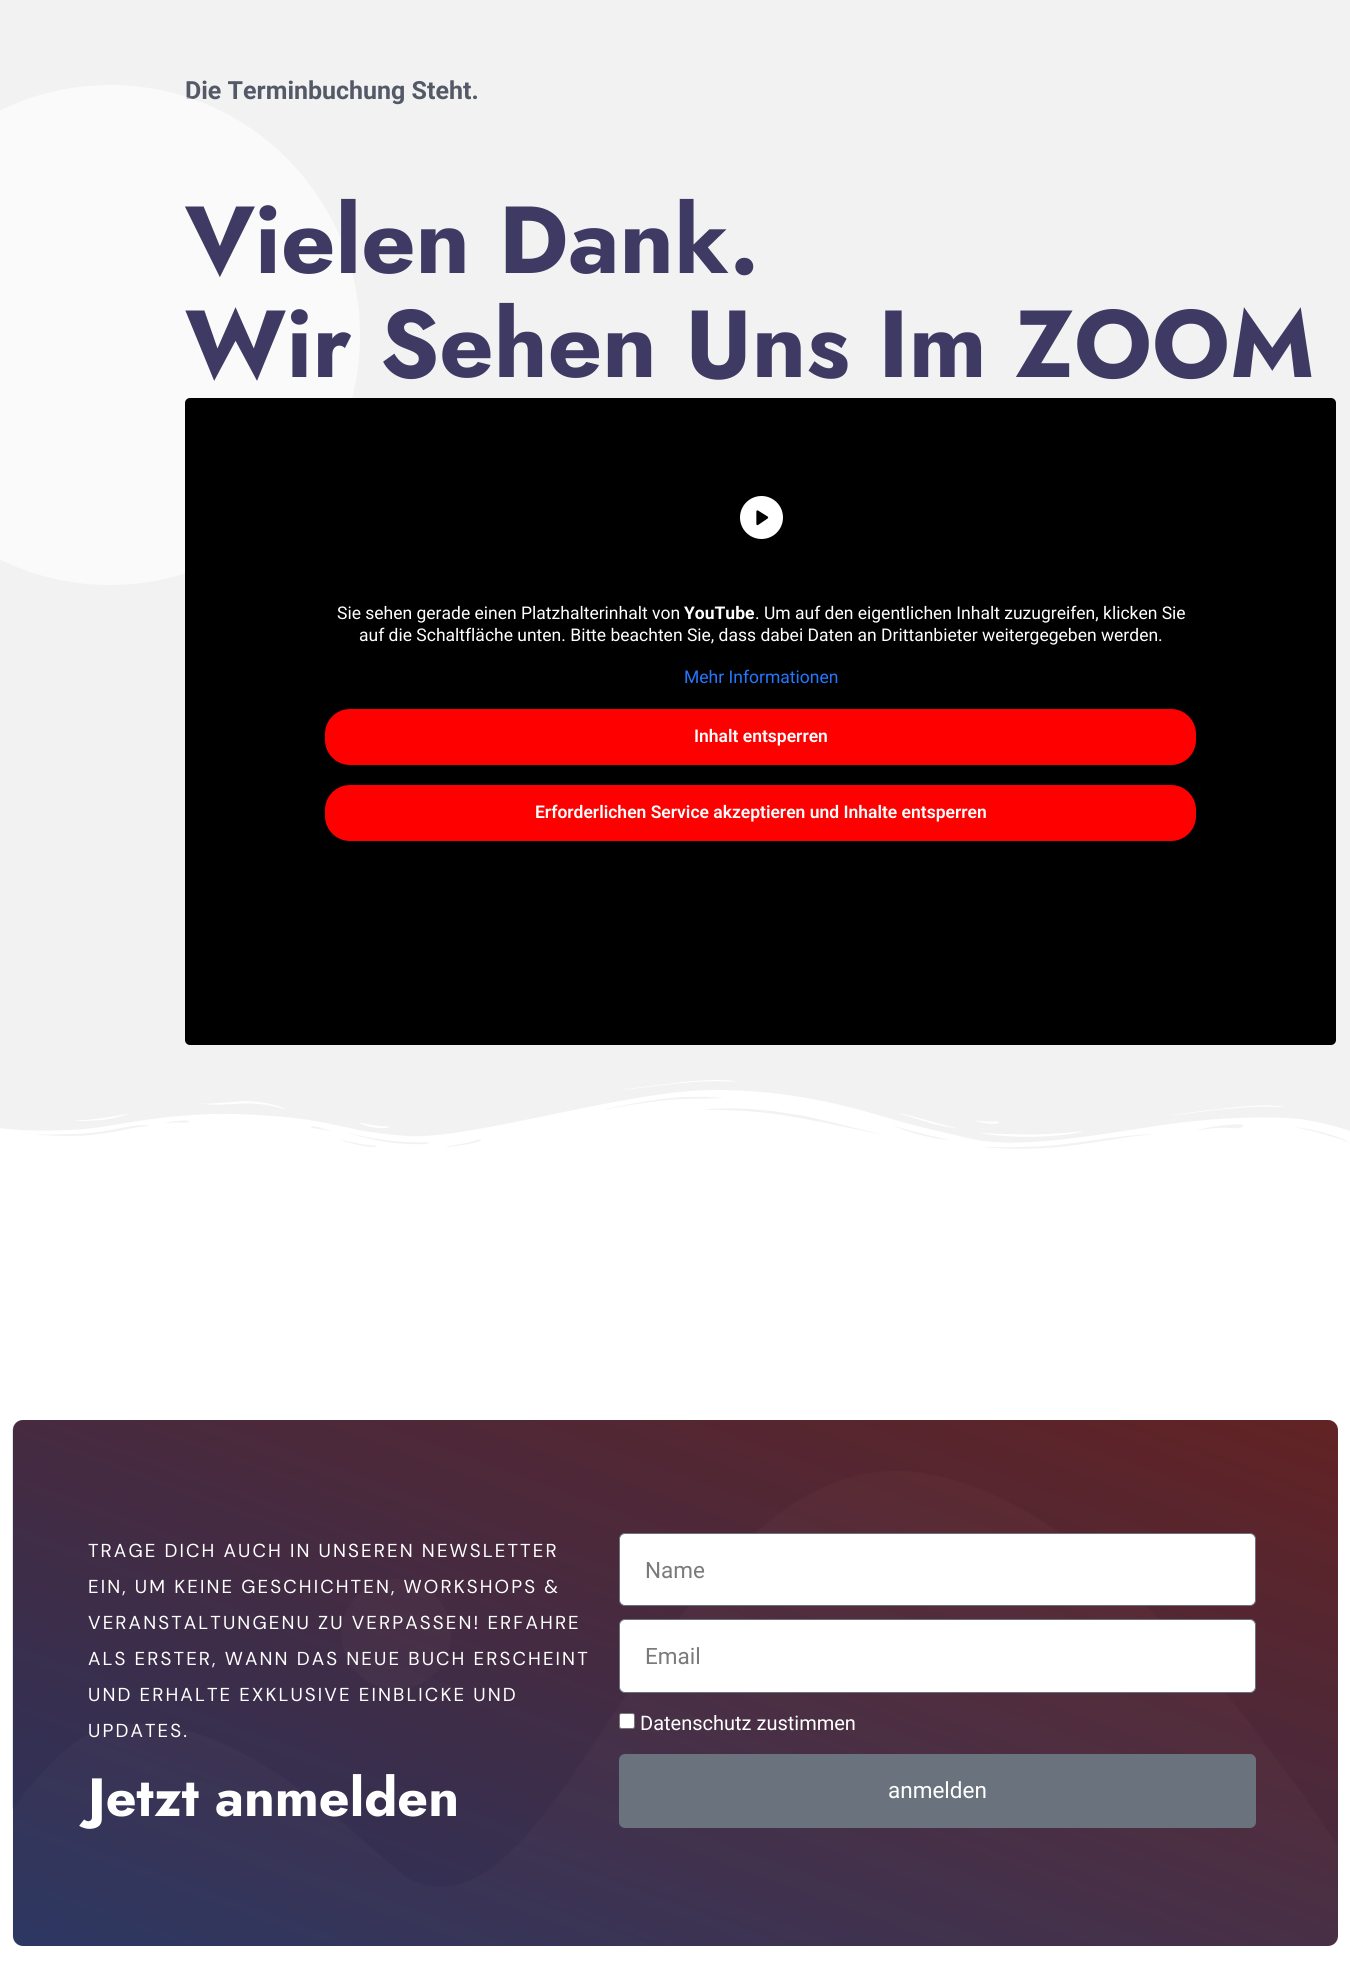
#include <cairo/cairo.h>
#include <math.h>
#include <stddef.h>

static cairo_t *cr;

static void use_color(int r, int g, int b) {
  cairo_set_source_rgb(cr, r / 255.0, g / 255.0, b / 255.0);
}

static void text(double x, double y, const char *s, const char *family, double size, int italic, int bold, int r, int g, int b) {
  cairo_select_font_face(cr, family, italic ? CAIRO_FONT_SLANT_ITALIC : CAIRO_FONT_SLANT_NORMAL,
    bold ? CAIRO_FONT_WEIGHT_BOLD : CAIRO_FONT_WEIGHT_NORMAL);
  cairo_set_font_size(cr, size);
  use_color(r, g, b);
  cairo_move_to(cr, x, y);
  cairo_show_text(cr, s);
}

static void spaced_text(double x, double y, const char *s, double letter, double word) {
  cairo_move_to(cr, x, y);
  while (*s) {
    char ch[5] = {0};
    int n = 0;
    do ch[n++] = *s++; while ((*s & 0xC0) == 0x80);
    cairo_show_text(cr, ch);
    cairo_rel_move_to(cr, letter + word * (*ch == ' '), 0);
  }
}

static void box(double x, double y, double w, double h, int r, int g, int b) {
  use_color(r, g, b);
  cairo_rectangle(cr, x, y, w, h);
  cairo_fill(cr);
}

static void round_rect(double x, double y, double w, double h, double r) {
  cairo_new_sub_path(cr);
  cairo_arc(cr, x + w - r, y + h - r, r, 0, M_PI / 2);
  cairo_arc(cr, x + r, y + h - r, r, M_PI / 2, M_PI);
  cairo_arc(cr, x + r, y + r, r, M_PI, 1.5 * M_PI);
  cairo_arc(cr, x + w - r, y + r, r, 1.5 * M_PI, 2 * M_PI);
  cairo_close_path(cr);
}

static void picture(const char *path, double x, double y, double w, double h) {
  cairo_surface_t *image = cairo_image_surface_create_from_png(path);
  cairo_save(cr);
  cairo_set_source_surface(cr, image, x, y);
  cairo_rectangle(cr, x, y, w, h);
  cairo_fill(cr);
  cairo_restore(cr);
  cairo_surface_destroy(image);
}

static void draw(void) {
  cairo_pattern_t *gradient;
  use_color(255, 255, 255);
  cairo_paint(cr);
  box(0, 0, 1350, 1149, 242, 242, 242);
  picture("img_01.png", 0, 1080, 1350, 78);
  picture("img_02.png", 12, 1420, 1326, 526);
  gradient = cairo_pattern_create_linear(837, 1238, 513, 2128);
  cairo_pattern_add_color_stop_rgba(gradient, 0, 0.349, 0.071, 0.071, 0.91);
  cairo_pattern_add_color_stop_rgba(gradient, 1, 0.098, 0.145, 0.329, 0.91);
  cairo_set_source(cr, gradient);
  cairo_pattern_destroy(gradient);
  round_rect(13, 1420, 1325, 526, 10);
  cairo_fill(cr);
  use_color(255, 255, 255);
  round_rect(619.5, 1533.5, 636, 72, 5.5);
  cairo_fill_preserve(cr);
  use_color(105, 114, 125);
  cairo_set_line_width(cr, 1);
  cairo_stroke(cr);
  use_color(255, 255, 255);
  round_rect(619.5, 1619.5, 636, 73, 5.5);
  cairo_fill_preserve(cr);
  use_color(105, 114, 125);
  cairo_stroke(cr);
  use_color(255, 255, 255);
  round_rect(619.5, 1713.5, 15, 15, 2);
  cairo_fill_preserve(cr);
  use_color(118, 118, 118);
  cairo_stroke(cr);
  use_color(105, 114, 125);
  round_rect(619, 1754, 637, 74, 6);
  cairo_fill(cr);
  text(185, 99, "Die Terminbuchung Steht.", "Roboto", 25, 0, 1, 83, 89, 103);
  cairo_set_source_rgba(cr, 1, 1, 1, 0.61);
  cairo_new_path(cr);
  cairo_arc(cr, 110, 335, 250, 0, 2 * M_PI);
  cairo_fill(cr);
  text(185, 273, "Vielen Dank.", "Jost", 95, 0, 1, 63, 58, 100);
  text(185, 377, "Wir Sehen Uns Im ZOOM", "Jost", 95, 0, 1, 63, 58, 100);
  use_color(0, 0, 0);
  round_rect(185, 398, 1151, 647, 5);
  cairo_fill(cr);
  use_color(255, 255, 255);
  cairo_arc(cr, 761.5, 517.5, 21.5, 0, 2 * M_PI);
  cairo_fill(cr);
  use_color(0, 0, 0);
  cairo_new_path(cr);
  cairo_move_to(cr, 757.5, 524);
  cairo_line_to(cr, 757.5, 511.5);
  cairo_line_to(cr, 767, 517.5);
  cairo_close_path(cr);
  cairo_fill_preserve(cr);
  cairo_set_line_width(cr, 2.3);
  cairo_set_line_cap(cr, CAIRO_LINE_CAP_ROUND);
  cairo_set_line_join(cr, CAIRO_LINE_JOIN_ROUND);
  cairo_stroke(cr);
  text(337, 619, "Sie sehen gerade einen Platzhalterinhalt von", "Roboto", 17.5, 0, 0, 255, 255, 255);
  text(684, 619, "YouTube", "Roboto", 17.5, 0, 1, 255, 255, 255);
  text(755, 619, ". Um auf den eigentlichen Inhalt zuzugreifen, klicken Sie", "Roboto", 17.5, 0, 0, 255, 255, 255);
  text(359, 641, "auf die Schaltfläche unten. Bitte beachten Sie, dass dabei Daten an Drittanbieter weitergegeben werden.", "Roboto", 17.5, 0, 0, 255, 255, 255);
  text(684, 683, "Mehr Informationen", "Roboto", 17.5, 0, 0, 34, 119, 255);
  use_color(255, 0, 0);
  round_rect(325, 709, 871, 56, 25);
  cairo_fill(cr);
  text(694, 742, "Inhalt entsperren", "Roboto SemiBold", 17.5, 0, 0, 255, 255, 255);
  use_color(255, 0, 0);
  round_rect(325, 785, 871, 56, 25);
  cairo_fill(cr);
  text(535, 818, "Erforderlichen Service akzeptieren und Inhalte entsperren", "Roboto SemiBold", 17.5, 0, 0, 255, 255, 255);
  cairo_select_font_face(cr, "DM Sans", CAIRO_FONT_SLANT_NORMAL, CAIRO_FONT_WEIGHT_NORMAL);
  cairo_set_font_size(cr, 18.75);
  spaced_text(88, 1557, "TRAGE DICH AUCH IN UNSEREN NEWSLETTER", 2.1, 0);
  spaced_text(88, 1593, "EIN, UM KEINE GESCHICHTEN, WORKSHOPS &", 2.1, 0);
  spaced_text(88, 1629, "VERANSTALTUNGENU ZU VERPASSEN! ERFAHRE", 2.1, 0);
  spaced_text(88, 1665, "ALS ERSTER, WANN DAS NEUE BUCH ERSCHEINT", 2.1, 0);
  spaced_text(88, 1701, "UND ERHALTE EXKLUSIVE EINBLICKE UND", 2.1, 0);
  spaced_text(88, 1737, "UPDATES.", 2.1, 0);
  text(88, 1816, "Jetzt anmelden", "Jost", 53.75, 0, 1, 255, 255, 255);
  text(645, 1578, "Name", "Roboto", 22.5, 0, 0, 121, 122, 124);
  text(645, 1664, "Email", "Roboto", 22.5, 0, 0, 121, 122, 124);
  text(640, 1730, "Datenschutz zustimmen", "Roboto", 20, 0, 0, 255, 255, 255);
  text(888, 1798, "anmelden", "Roboto", 22.5, 0, 0, 255, 255, 255);
}

int main(void) {
  cairo_surface_t *surface = cairo_image_surface_create(CAIRO_FORMAT_RGB24, 1350, 1971);
  cr = cairo_create(surface);
  cairo_font_options_t *options = cairo_font_options_create();
  cairo_font_options_set_hint_metrics(options, CAIRO_HINT_METRICS_OFF);
  cairo_font_options_set_hint_style(options, CAIRO_HINT_STYLE_NONE);
  cairo_set_font_options(cr, options);
  cairo_set_miter_limit(cr, 4);
  draw();
  cairo_surface_write_to_png(surface, "out.png");
  cairo_font_options_destroy(options);
  cairo_destroy(cr);
  cairo_surface_destroy(surface);
  return 0;
}
